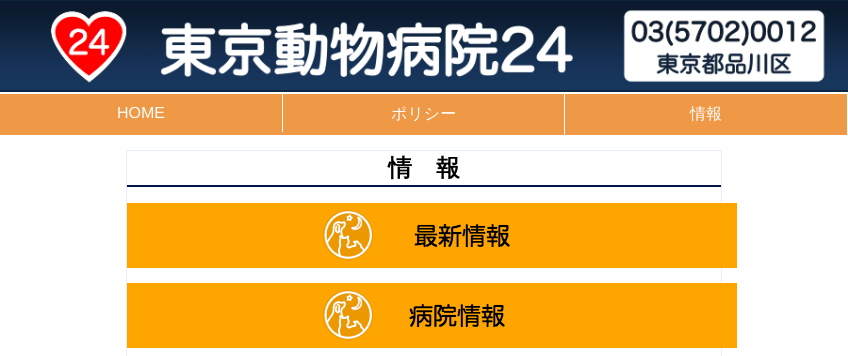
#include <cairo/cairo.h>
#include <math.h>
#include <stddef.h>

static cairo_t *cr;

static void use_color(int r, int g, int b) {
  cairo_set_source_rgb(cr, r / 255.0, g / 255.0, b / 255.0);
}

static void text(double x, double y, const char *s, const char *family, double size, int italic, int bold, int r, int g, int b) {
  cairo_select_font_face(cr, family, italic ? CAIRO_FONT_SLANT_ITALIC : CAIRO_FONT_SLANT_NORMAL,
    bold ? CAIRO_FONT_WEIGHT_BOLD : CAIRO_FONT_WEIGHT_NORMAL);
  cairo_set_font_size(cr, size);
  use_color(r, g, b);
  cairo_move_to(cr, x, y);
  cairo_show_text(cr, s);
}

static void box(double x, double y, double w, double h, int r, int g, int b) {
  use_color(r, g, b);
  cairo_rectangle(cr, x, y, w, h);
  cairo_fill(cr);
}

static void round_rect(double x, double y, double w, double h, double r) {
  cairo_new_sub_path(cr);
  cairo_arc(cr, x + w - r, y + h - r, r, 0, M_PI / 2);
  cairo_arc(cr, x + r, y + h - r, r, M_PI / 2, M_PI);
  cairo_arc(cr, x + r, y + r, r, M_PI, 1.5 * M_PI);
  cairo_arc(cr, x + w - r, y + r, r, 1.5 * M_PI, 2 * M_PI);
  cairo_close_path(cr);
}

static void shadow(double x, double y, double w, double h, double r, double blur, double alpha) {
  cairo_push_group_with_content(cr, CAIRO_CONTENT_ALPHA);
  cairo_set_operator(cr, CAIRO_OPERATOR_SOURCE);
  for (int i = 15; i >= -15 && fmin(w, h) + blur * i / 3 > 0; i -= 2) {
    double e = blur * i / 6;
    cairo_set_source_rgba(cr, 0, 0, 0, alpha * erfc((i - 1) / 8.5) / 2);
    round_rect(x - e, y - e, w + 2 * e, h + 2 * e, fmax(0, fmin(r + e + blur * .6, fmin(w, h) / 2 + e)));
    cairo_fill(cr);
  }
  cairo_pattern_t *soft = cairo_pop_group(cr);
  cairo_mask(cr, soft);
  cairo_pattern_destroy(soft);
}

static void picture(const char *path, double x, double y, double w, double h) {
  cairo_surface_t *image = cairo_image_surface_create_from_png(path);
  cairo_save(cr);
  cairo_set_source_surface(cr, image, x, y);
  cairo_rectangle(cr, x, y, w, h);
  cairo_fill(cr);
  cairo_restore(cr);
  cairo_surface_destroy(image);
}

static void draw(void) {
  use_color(255, 255, 255);
  cairo_paint(cr);
  picture("img_01.png", 0, 0, 848, 92);
  box(0, 94, 847, 41, 239, 152, 69);
  box(282, 93, 1, 39, 255, 255, 255);
  box(564, 93, 1, 42, 255, 255, 255);
  cairo_save(cr);
  cairo_set_fill_rule(cr, CAIRO_FILL_RULE_EVEN_ODD);
  cairo_new_path(cr);
  cairo_move_to(cr, 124, 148);
  cairo_line_to(cr, 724, 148);
  cairo_line_to(cr, 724, 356);
  cairo_line_to(cr, 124, 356);
  cairo_close_path(cr);
  cairo_move_to(cr, 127, 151);
  cairo_line_to(cr, 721, 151);
  cairo_line_to(cr, 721, 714);
  cairo_line_to(cr, 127, 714);
  cairo_close_path(cr);
  cairo_clip(cr);
  use_color(158, 180, 253);
  shadow(127, 151, 594, 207, 0, 0.5, 1);
  cairo_restore(cr);
  box(127, 185, 594, 2, 1, 23, 71);
  box(127, 203, 610, 65, 255, 165, 0);
  picture("img_02.png", 323, 210, 187, 50);
  box(127, 283, 610, 65, 255, 165, 0);
  picture("img_03.png", 323, 290, 182, 50);
  text(117, 118, "HOME", "Liberation Sans", 16, 0, 0, 255, 255, 255);
  text(391, 119, "ポリシー", "WenQuanYi Zen Hei Medium", 16, 0, 0, 255, 255, 255);
  text(690, 119, "情報", "WenQuanYi Zen Hei Medium", 16, 0, 0, 255, 255, 255);
  text(388, 176, "情　報", "WenQuanYi Zen Hei", 24, 0, 1, 0, 0, 0);
}

int main(void) {
  cairo_surface_t *surface = cairo_image_surface_create(CAIRO_FORMAT_RGB24, 848, 356);
  cr = cairo_create(surface);
  cairo_font_options_t *options = cairo_font_options_create();
  cairo_font_options_set_hint_metrics(options, CAIRO_HINT_METRICS_OFF);
  cairo_font_options_set_hint_style(options, CAIRO_HINT_STYLE_NONE);
  cairo_set_font_options(cr, options);
  cairo_set_miter_limit(cr, 4);
  draw();
  cairo_surface_write_to_png(surface, "out.png");
  cairo_font_options_destroy(options);
  cairo_destroy(cr);
  cairo_surface_destroy(surface);
  return 0;
}
